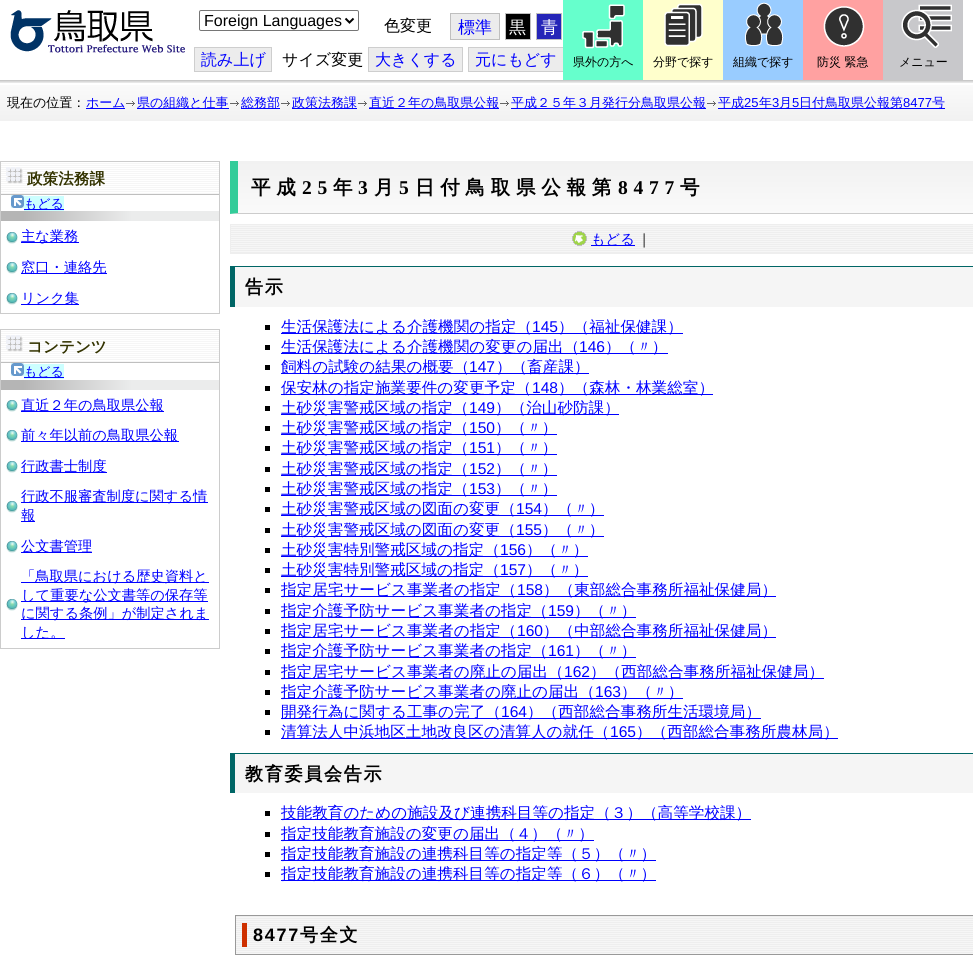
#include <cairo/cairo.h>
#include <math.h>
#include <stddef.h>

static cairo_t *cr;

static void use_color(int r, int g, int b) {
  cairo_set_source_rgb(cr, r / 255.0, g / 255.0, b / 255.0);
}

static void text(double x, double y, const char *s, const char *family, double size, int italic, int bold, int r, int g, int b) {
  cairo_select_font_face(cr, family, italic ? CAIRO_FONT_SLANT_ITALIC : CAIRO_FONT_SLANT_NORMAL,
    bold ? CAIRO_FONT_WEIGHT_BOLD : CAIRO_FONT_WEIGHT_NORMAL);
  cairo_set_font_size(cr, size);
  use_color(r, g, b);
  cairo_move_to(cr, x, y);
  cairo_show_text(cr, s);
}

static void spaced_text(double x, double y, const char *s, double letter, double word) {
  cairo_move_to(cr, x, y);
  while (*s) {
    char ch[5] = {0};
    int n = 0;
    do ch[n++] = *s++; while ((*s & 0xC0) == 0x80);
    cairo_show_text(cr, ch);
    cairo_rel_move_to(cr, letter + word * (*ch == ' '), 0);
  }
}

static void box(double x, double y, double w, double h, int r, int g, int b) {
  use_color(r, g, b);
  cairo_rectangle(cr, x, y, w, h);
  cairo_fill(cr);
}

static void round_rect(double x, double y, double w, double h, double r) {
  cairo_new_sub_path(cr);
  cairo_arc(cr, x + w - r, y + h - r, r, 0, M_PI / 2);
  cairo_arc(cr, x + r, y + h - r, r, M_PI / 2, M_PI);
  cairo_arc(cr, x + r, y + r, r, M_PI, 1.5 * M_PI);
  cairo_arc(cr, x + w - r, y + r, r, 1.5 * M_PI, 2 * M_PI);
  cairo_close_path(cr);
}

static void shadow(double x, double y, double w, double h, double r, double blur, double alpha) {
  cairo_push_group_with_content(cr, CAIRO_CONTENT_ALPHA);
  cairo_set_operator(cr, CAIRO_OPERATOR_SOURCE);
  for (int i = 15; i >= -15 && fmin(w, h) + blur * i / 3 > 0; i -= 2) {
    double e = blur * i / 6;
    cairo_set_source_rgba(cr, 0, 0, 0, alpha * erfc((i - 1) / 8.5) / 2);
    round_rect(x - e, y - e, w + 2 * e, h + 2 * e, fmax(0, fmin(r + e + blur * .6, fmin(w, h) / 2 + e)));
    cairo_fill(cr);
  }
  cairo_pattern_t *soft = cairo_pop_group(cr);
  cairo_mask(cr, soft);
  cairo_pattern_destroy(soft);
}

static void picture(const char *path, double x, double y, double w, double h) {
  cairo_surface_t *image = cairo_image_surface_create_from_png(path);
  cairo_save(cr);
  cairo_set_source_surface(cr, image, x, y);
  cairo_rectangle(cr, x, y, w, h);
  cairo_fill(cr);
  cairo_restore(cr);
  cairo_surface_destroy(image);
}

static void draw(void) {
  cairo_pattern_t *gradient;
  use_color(255, 255, 255);
  cairo_paint(cr);
  gradient = cairo_pattern_create_linear(500, 85, 500, 121);
  cairo_pattern_add_color_stop_rgba(gradient, 0, 0.98, 0.98, 0.98, 1);
  cairo_pattern_add_color_stop_rgba(gradient, 1, 0.945, 0.945, 0.945, 1);
  cairo_set_source(cr, gradient);
  cairo_pattern_destroy(gradient);
  cairo_rectangle(cr, 0, 85, 973, 36);
  cairo_fill(cr);
  cairo_save(cr);
  cairo_rectangle(cr, 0, 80, 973, 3);
  cairo_clip(cr);
  use_color(0, 0, 0);
  shadow(-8, 1, 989, 80, 0, 2.5, 0.1);
  shadow(-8, 1, 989, 80, 0, 2.5, 0.1);
  shadow(-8, 1, 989, 80, 0, 2.5, 0.1);
  shadow(-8, 1, 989, 80, 0, 2.5, 0.1);
  cairo_restore(cr);
  picture("img_01.png", 10, 10, 175, 43);
  round_rect(199.5, 10.5, 159, 20, 1.5);
  use_color(118, 118, 118);
  cairo_set_line_width(cr, 1);
  cairo_stroke(cr);
  cairo_new_path(cr);
  cairo_move_to(cr, 345.5, 18.5);
  cairo_line_to(cr, 349.5, 22.5);
  cairo_line_to(cr, 353.5, 18.5);
  use_color(0, 0, 0);
  cairo_set_line_width(cr, 2);
  cairo_stroke(cr);
  use_color(236, 236, 236);
  cairo_rectangle(cr, 450.5, 13.5, 49, 26);
  cairo_fill_preserve(cr);
  use_color(191, 191, 191);
  cairo_set_line_width(cr, 1);
  cairo_stroke(cr);
  use_color(0, 0, 0);
  cairo_rectangle(cr, 505.5, 13.5, 25, 26);
  cairo_fill_preserve(cr);
  use_color(191, 191, 191);
  cairo_stroke(cr);
  use_color(37, 37, 184);
  cairo_rectangle(cr, 536.5, 13.5, 25, 26);
  cairo_fill_preserve(cr);
  use_color(191, 191, 191);
  cairo_stroke(cr);
  use_color(236, 236, 236);
  cairo_rectangle(cr, 194.5, 47.5, 77, 24);
  cairo_fill_preserve(cr);
  use_color(206, 206, 206);
  cairo_stroke(cr);
  box(369, 48, 93, 23, 236, 236, 236);
  box(368, 47, 95, 1, 206, 206, 206);
  box(368, 71, 23, 1, 206, 206, 206);
  box(368, 47, 1, 25, 206, 206, 206);
  box(462, 47, 1, 25, 206, 206, 206);
  box(391, 71, 72, 1, 206, 206, 206);
  box(469, 48, 94, 23, 236, 236, 236);
  box(468, 47, 96, 1, 206, 206, 206);
  box(468, 71, 96, 1, 206, 206, 206);
  box(468, 47, 1, 25, 206, 206, 206);
  box(563, 0, 80, 80, 102, 255, 204);
  picture("img_02.png", 582, 4, 43, 45);
  box(643, 0, 80, 80, 255, 255, 204);
  picture("img_03.png", 664, 3, 39, 44);
  box(723, 0, 80, 80, 153, 204, 255);
  picture("img_04.png", 745, 2, 39, 44);
  box(803, 0, 80, 80, 255, 161, 161);
  picture("img_05.png", 823, 6, 42, 41);
  box(883, 0, 80, 80, 200, 200, 203);
  picture("img_06.png", 901, 4, 51, 44);
  box(86, 108, 39, 1, 0, 0, 255);
  picture("img_07.png", 126, 101, 9, 5);
  box(137, 108, 92, 1, 0, 0, 255);
  picture("img_07.png", 230, 101, 9, 5);
  box(241, 108, 39, 1, 0, 0, 255);
  picture("img_07.png", 281, 101, 9, 5);
  box(292, 108, 65, 1, 0, 0, 255);
  picture("img_07.png", 358, 101, 9, 5);
  box(369, 108, 130, 1, 0, 0, 255);
  picture("img_07.png", 500, 101, 9, 5);
  box(511, 108, 195, 1, 0, 0, 255);
  picture("img_07.png", 707, 101, 9, 5);
  box(718, 108, 227, 1, 0, 0, 255);
  cairo_rectangle(cr, 0.5, 161.5, 219, 152);
  use_color(204, 204, 204);
  cairo_stroke(cr);
  picture("img_08.png", 1, 163, 218, 31);
  box(1, 194, 218, 1, 191, 191, 191);
  picture("img_09.png", 6, 167, 17, 17);
  box(11, 195, 13, 13, 204, 255, 255);
  picture("img_10.png", 11, 195, 13, 13);
  box(24, 196, 40, 15, 204, 255, 255);
  box(24, 209, 40, 1, 0, 0, 255);
  gradient = cairo_pattern_create_linear(1, 216, 219, 216);
  cairo_pattern_add_color_stop_rgba(gradient, 0, 0.71, 0.71, 0.71, 1);
  cairo_pattern_add_color_stop_rgba(gradient, 0.1, 0.71, 0.71, 0.71, 1);
  cairo_pattern_add_color_stop_rgba(gradient, 0.6, 0.922, 0.925, 0.925, 1);
  cairo_pattern_add_color_stop_rgba(gradient, 1, 0.922, 0.925, 0.925, 1);
  cairo_set_source(cr, gradient);
  cairo_pattern_destroy(gradient);
  cairo_rectangle(cr, 1, 211, 218, 10);
  cairo_fill(cr);
  picture("img_11.png", 6, 232, 12, 12);
  box(21, 242, 58, 1, 0, 0, 255);
  picture("img_11.png", 6, 262, 12, 12);
  box(21, 273, 86, 1, 0, 0, 255);
  picture("img_11.png", 6, 293, 12, 12);
  box(21, 304, 58, 1, 0, 0, 255);
  cairo_rectangle(cr, 0.5, 329.5, 219, 319);
  use_color(204, 204, 204);
  cairo_stroke(cr);
  picture("img_08.png", 1, 331, 218, 31);
  box(1, 362, 218, 1, 191, 191, 191);
  picture("img_09.png", 6, 335, 17, 17);
  box(11, 363, 13, 13, 204, 255, 255);
  picture("img_10.png", 11, 363, 13, 13);
  box(24, 364, 40, 15, 204, 255, 255);
  box(24, 377, 40, 1, 0, 0, 255);
  gradient = cairo_pattern_create_linear(1, 385, 219, 385);
  cairo_pattern_add_color_stop_rgba(gradient, 0, 0.71, 0.71, 0.71, 1);
  cairo_pattern_add_color_stop_rgba(gradient, 0.1, 0.71, 0.71, 0.71, 1);
  cairo_pattern_add_color_stop_rgba(gradient, 0.6, 0.922, 0.925, 0.925, 1);
  cairo_pattern_add_color_stop_rgba(gradient, 1, 0.922, 0.925, 0.925, 1);
  cairo_set_source(cr, gradient);
  cairo_pattern_destroy(gradient);
  cairo_rectangle(cr, 1, 380, 218, 10);
  cairo_fill(cr);
  picture("img_11.png", 6, 400, 12, 12);
  box(21, 411, 143, 1, 0, 0, 255);
  picture("img_11.png", 6, 430, 12, 12);
  box(21, 441, 158, 1, 0, 0, 255);
  picture("img_11.png", 6, 461, 12, 12);
  box(21, 472, 86, 1, 0, 0, 255);
  picture("img_11.png", 6, 501, 12, 12);
  box(21, 502, 187, 1, 0, 0, 255);
  box(21, 521, 14, 1, 0, 0, 255);
  picture("img_11.png", 6, 541, 12, 12);
  box(21, 552, 71, 1, 0, 0, 255);
  picture("img_11.png", 6, 599, 12, 12);
  box(21, 582, 188, 1, 0, 0, 255);
  box(21, 601, 187, 1, 0, 0, 255);
  box(21, 619, 188, 1, 0, 0, 255);
  box(21, 638, 44, 1, 0, 0, 255);
  gradient = cairo_pattern_create_linear(615, 161, 615, 213);
  cairo_pattern_add_color_stop_rgba(gradient, 0, 0.945, 0.945, 0.945, 1);
  cairo_pattern_add_color_stop_rgba(gradient, 1, 0.98, 0.98, 0.98, 1);
  cairo_set_source(cr, gradient);
  cairo_pattern_destroy(gradient);
  cairo_rectangle(cr, 238, 161, 735, 52);
  cairo_fill(cr);
  use_color(204, 204, 204);
  cairo_new_path(cr);
  cairo_move_to(cr, 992, 214);
  cairo_line_to(cr, 230, 214);
  cairo_line_to(cr, 238, 213);
  cairo_line_to(cr, 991, 213);
  cairo_close_path(cr);
  cairo_fill(cr);
  use_color(51, 204, 153);
  cairo_new_path(cr);
  cairo_move_to(cr, 230, 214);
  cairo_line_to(cr, 230, 161);
  cairo_line_to(cr, 238, 161);
  cairo_line_to(cr, 238, 213);
  cairo_close_path(cr);
  cairo_fill(cr);
  picture("img_12.png", 231, 225, 742, 28);
  cairo_rectangle(cr, 230.5, 224.5, 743, 29);
  use_color(238, 238, 238);
  cairo_stroke(cr);
  picture("img_13.png", 572, 231, 15, 15);
  box(591, 245, 44, 1, 0, 0, 255);
  box(235, 267, 738, 40, 245, 245, 245);
  box(230, 266, 743, 1, 0, 102, 102);
  box(230, 266, 5, 41, 0, 102, 102);
  box(265, 325, 5, 5, 0, 0, 0);
  box(281, 333, 402, 1, 0, 0, 255);
  box(265, 345, 5, 5, 0, 0, 0);
  box(281, 353, 387, 1, 0, 0, 255);
  box(265, 365, 5, 5, 0, 0, 0);
  box(281, 373, 308, 1, 0, 0, 255);
  box(265, 386, 5, 5, 0, 0, 0);
  box(281, 394, 432, 1, 0, 0, 255);
  box(265, 406, 5, 5, 0, 0, 0);
  box(281, 414, 338, 1, 0, 0, 255);
  box(265, 426, 5, 5, 0, 0, 0);
  box(281, 434, 276, 1, 0, 0, 255);
  box(265, 446, 5, 5, 0, 0, 0);
  box(281, 454, 276, 1, 0, 0, 255);
  box(265, 467, 5, 5, 0, 0, 0);
  box(281, 475, 276, 1, 0, 0, 255);
  box(265, 487, 5, 5, 0, 0, 0);
  box(281, 495, 276, 1, 0, 0, 255);
  box(265, 507, 5, 5, 0, 0, 0);
  box(281, 515, 323, 1, 0, 0, 255);
  box(265, 528, 5, 5, 0, 0, 0);
  box(281, 536, 323, 1, 0, 0, 255);
  box(265, 548, 5, 5, 0, 0, 0);
  box(281, 556, 307, 1, 0, 0, 255);
  box(265, 568, 5, 5, 0, 0, 0);
  box(281, 576, 307, 1, 0, 0, 255);
  box(265, 588, 5, 5, 0, 0, 0);
  box(281, 596, 495, 1, 0, 0, 255);
  box(265, 609, 5, 5, 0, 0, 0);
  box(281, 617, 355, 1, 0, 0, 255);
  box(265, 629, 5, 5, 0, 0, 0);
  box(281, 637, 495, 1, 0, 0, 255);
  box(265, 649, 5, 5, 0, 0, 0);
  box(281, 657, 355, 1, 0, 0, 255);
  box(265, 670, 5, 5, 0, 0, 0);
  box(281, 678, 543, 1, 0, 0, 255);
  box(265, 690, 5, 5, 0, 0, 0);
  box(281, 698, 402, 1, 0, 0, 255);
  box(265, 710, 5, 5, 0, 0, 0);
  box(281, 718, 480, 1, 0, 0, 255);
  box(265, 730, 5, 5, 0, 0, 0);
  box(281, 738, 557, 1, 0, 0, 255);
  box(235, 754, 738, 39, 245, 245, 245);
  box(230, 753, 743, 1, 0, 102, 102);
  box(230, 753, 5, 40, 0, 102, 102);
  box(265, 811, 5, 5, 0, 0, 0);
  box(281, 819, 470, 1, 0, 0, 255);
  box(265, 832, 5, 5, 0, 0, 0);
  box(281, 840, 313, 1, 0, 0, 255);
  box(265, 852, 5, 5, 0, 0, 0);
  box(281, 860, 375, 1, 0, 0, 255);
  box(265, 872, 5, 5, 0, 0, 0);
  box(281, 880, 375, 1, 0, 0, 255);
  picture("img_14.png", 236, 916, 737, 38);
  cairo_rectangle(cr, 235.5, 915.5, 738, 39);
  use_color(153, 153, 153);
  cairo_stroke(cr);
  box(242, 923, 5, 24, 206, 48, 0);
  text(204, 26, "Foreign Languages", "Liberation Sans", 16, 0, 0, 0, 0, 0);
  text(384, 31, "色変更", "WenQuanYi Zen Hei Medium", 16, 0, 0, 0, 0, 0);
  text(458, 33, "標準", "WenQuanYi Zen Hei Medium", 17, 0, 0, 0, 0, 255);
  text(509, 33, "黒", "WenQuanYi Zen Hei Medium", 17, 0, 0, 255, 255, 255);
  text(541, 33, "青", "WenQuanYi Zen Hei Medium", 17, 0, 0, 255, 255, 255);
  text(201, 65, "読み上げ", "WenQuanYi Zen Hei Medium", 16, 0, 0, 0, 0, 255);
  text(282, 65, "サイズ変更", "WenQuanYi Zen Hei Medium", 16, 0, 0, 0, 0, 0);
  text(375, 65, "大きくする", "WenQuanYi Zen Hei Medium", 16, 0, 0, 0, 0, 255);
  text(475, 65, "元にもどす", "WenQuanYi Zen Hei Medium", 16, 0, 0, 0, 0, 255);
  text(573, 66, "県外の方へ", "WenQuanYi Zen Hei Medium", 12, 0, 0, 0, 0, 0);
  text(653, 66, "分野で探す", "WenQuanYi Zen Hei Medium", 12, 0, 0, 0, 0, 0);
  text(733, 66, "組織で探す", "WenQuanYi Zen Hei Medium", 12, 0, 0, 0, 0, 0);
  text(817, 66, "防災 緊急", "WenQuanYi Zen Hei Medium", 12, 0, 0, 0, 0, 0);
  text(899, 66, "メニュー", "WenQuanYi Zen Hei Medium", 12, 0, 0, 0, 0, 0);
  text(7, 107, "現在の位置：", "WenQuanYi Zen Hei Medium", 13, 0, 0, 0, 0, 0);
  text(86, 107, "ホーム", "WenQuanYi Zen Hei Medium", 13, 0, 0, 0, 0, 255);
  text(137, 107, "県の組織と仕事", "WenQuanYi Zen Hei Medium", 13, 0, 0, 0, 0, 255);
  text(241, 107, "総務部", "WenQuanYi Zen Hei Medium", 13, 0, 0, 0, 0, 255);
  text(292, 107, "政策法務課", "WenQuanYi Zen Hei Medium", 13, 0, 0, 0, 0, 255);
  text(369, 107, "直近２年の鳥取県公報", "WenQuanYi Zen Hei Medium", 13, 0, 0, 0, 0, 255);
  text(511, 107, "平成２５年３月発行分鳥取県公報", "WenQuanYi Zen Hei Medium", 13, 0, 0, 0, 0, 255);
  text(718, 107, "平成", "WenQuanYi Zen Hei Medium", 13, 0, 0, 0, 0, 255);
  text(744, 107, "25", "Liberation Sans", 13, 0, 0, 0, 0, 255);
  text(759, 107, "年", "WenQuanYi Zen Hei Medium", 13, 0, 0, 0, 0, 255);
  text(772, 107, "3", "Liberation Sans", 13, 0, 0, 0, 0, 255);
  text(779, 107, "月", "WenQuanYi Zen Hei Medium", 13, 0, 0, 0, 0, 255);
  text(792, 107, "5", "Liberation Sans", 13, 0, 0, 0, 0, 255);
  text(799, 107, "日付鳥取県公報第", "WenQuanYi Zen Hei Medium", 13, 0, 0, 0, 0, 255);
  text(903, 107, "8477", "Liberation Sans", 13, 0, 0, 0, 0, 255);
  text(932, 107, "号", "WenQuanYi Zen Hei Medium", 13, 0, 0, 0, 0, 255);
  text(27, 184, "政策法務課", "WenQuanYi Zen Hei", 15.6, 0, 1, 51, 51, 0);
  text(24, 208, "もどる", "WenQuanYi Zen Hei Medium", 13, 0, 0, 0, 0, 255);
  text(21, 241, "主な業務", "WenQuanYi Zen Hei Medium", 14.25, 0, 0, 0, 0, 255);
  text(21, 272, "窓口・連絡先", "WenQuanYi Zen Hei Medium", 14.25, 0, 0, 0, 0, 255);
  text(21, 303, "リンク集", "WenQuanYi Zen Hei Medium", 14.25, 0, 0, 0, 0, 255);
  text(27, 352, "コンテンツ", "WenQuanYi Zen Hei", 15.6, 0, 1, 51, 51, 0);
  text(24, 376, "もどる", "WenQuanYi Zen Hei Medium", 13, 0, 0, 0, 0, 255);
  text(21, 410, "直近２年の鳥取県公報", "WenQuanYi Zen Hei Medium", 14.25, 0, 0, 0, 0, 255);
  text(21, 440, "前々年以前の鳥取県公報", "WenQuanYi Zen Hei Medium", 14.25, 0, 0, 0, 0, 255);
  text(21, 471, "行政書士制度", "WenQuanYi Zen Hei Medium", 14.25, 0, 0, 0, 0, 255);
  text(21, 501, "行政不服審査制度に関する情", "WenQuanYi Zen Hei Medium", 14.25, 0, 0, 0, 0, 255);
  text(21, 520, "報", "WenQuanYi Zen Hei Medium", 14.25, 0, 0, 0, 0, 255);
  text(21, 551, "公文書管理", "WenQuanYi Zen Hei Medium", 14.25, 0, 0, 0, 0, 255);
  text(21, 581, "「鳥取県における歴史資料と", "WenQuanYi Zen Hei Medium", 14.25, 0, 0, 0, 0, 255);
  text(21, 600, "して重要な公文書等の保存等", "WenQuanYi Zen Hei Medium", 14.25, 0, 0, 0, 0, 255);
  text(21, 618, "に関する条例」が制定されま", "WenQuanYi Zen Hei Medium", 14.25, 0, 0, 0, 0, 255);
  text(21, 637, "した。", "WenQuanYi Zen Hei Medium", 14.25, 0, 0, 0, 0, 255);
  cairo_select_font_face(cr, "WenQuanYi Zen Hei", CAIRO_FONT_SLANT_NORMAL, CAIRO_FONT_WEIGHT_BOLD);
  cairo_set_font_size(cr, 19.5);
  use_color(0, 0, 0);
  spaced_text(251, 194, "平成", 5.75, 0);
  cairo_select_font_face(cr, "Liberation Serif", CAIRO_FONT_SLANT_NORMAL, CAIRO_FONT_WEIGHT_BOLD);
  spaced_text(302, 194, "25", 5.75, 0);
  cairo_select_font_face(cr, "WenQuanYi Zen Hei", CAIRO_FONT_SLANT_NORMAL, CAIRO_FONT_WEIGHT_BOLD);
  spaced_text(333, 194, "年", 5.75, 0);
  cairo_select_font_face(cr, "Liberation Serif", CAIRO_FONT_SLANT_NORMAL, CAIRO_FONT_WEIGHT_BOLD);
  spaced_text(358, 194, "3", 5.75, 0);
  cairo_select_font_face(cr, "WenQuanYi Zen Hei", CAIRO_FONT_SLANT_NORMAL, CAIRO_FONT_WEIGHT_BOLD);
  spaced_text(374, 194, "月", 5.75, 0);
  cairo_select_font_face(cr, "Liberation Serif", CAIRO_FONT_SLANT_NORMAL, CAIRO_FONT_WEIGHT_BOLD);
  spaced_text(399, 194, "5", 5.75, 0);
  cairo_select_font_face(cr, "WenQuanYi Zen Hei", CAIRO_FONT_SLANT_NORMAL, CAIRO_FONT_WEIGHT_BOLD);
  spaced_text(415, 194, "日付鳥取県公報第", 5.75, 0);
  cairo_select_font_face(cr, "Liberation Serif", CAIRO_FONT_SLANT_NORMAL, CAIRO_FONT_WEIGHT_BOLD);
  spaced_text(618, 194, "8477", 5.75, 0);
  cairo_select_font_face(cr, "WenQuanYi Zen Hei", CAIRO_FONT_SLANT_NORMAL, CAIRO_FONT_WEIGHT_BOLD);
  spaced_text(680, 194, "号", 5.75, 0);
  text(591, 244, "もどる", "WenQuanYi Zen Hei Medium", 14.25, 0, 0, 0, 0, 255);
  text(637, 244, "｜", "WenQuanYi Zen Hei Medium", 14.25, 0, 0, 0, 0, 0);
  cairo_select_font_face(cr, "WenQuanYi Zen Hei", CAIRO_FONT_SLANT_NORMAL, CAIRO_FONT_WEIGHT_BOLD);
  cairo_set_font_size(cr, 18);
  spaced_text(245, 293, "告示", 1.75, 0);
  text(281, 332, "生活保護法による介護機関の指定（", "WenQuanYi Zen Hei Medium", 15.6, 0, 0, 0, 0, 255);
  text(532, 332, "145", "Liberation Sans", 15.6, 0, 0, 0, 0, 255);
  text(558, 332, "）（福祉保健課）", "WenQuanYi Zen Hei Medium", 15.6, 0, 0, 0, 0, 255);
  text(281, 352, "生活保護法による介護機関の変更の届出（", "WenQuanYi Zen Hei Medium", 15.6, 0, 0, 0, 0, 255);
  text(579, 352, "146", "Liberation Sans", 15.6, 0, 0, 0, 0, 255);
  text(605, 352, "）（〃）", "WenQuanYi Zen Hei Medium", 15.6, 0, 0, 0, 0, 255);
  text(281, 372, "飼料の試験の結果の概要（", "WenQuanYi Zen Hei Medium", 15.6, 0, 0, 0, 0, 255);
  text(469, 372, "147", "Liberation Sans", 15.6, 0, 0, 0, 0, 255);
  text(496, 372, "）（畜産課）", "WenQuanYi Zen Hei Medium", 15.6, 0, 0, 0, 0, 255);
  text(281, 393, "保安林の指定施業要件の変更予定（", "WenQuanYi Zen Hei Medium", 15.6, 0, 0, 0, 0, 255);
  text(532, 393, "148", "Liberation Sans", 15.6, 0, 0, 0, 0, 255);
  text(558, 393, "）（森林・林業総室）", "WenQuanYi Zen Hei Medium", 15.6, 0, 0, 0, 0, 255);
  text(281, 413, "土砂災害警戒区域の指定（", "WenQuanYi Zen Hei Medium", 15.6, 0, 0, 0, 0, 255);
  text(469, 413, "149", "Liberation Sans", 15.6, 0, 0, 0, 0, 255);
  text(495, 413, "）（治山砂防課）", "WenQuanYi Zen Hei Medium", 15.6, 0, 0, 0, 0, 255);
  text(281, 433, "土砂災害警戒区域の指定（", "WenQuanYi Zen Hei Medium", 15.6, 0, 0, 0, 0, 255);
  text(469, 433, "150", "Liberation Sans", 15.6, 0, 0, 0, 0, 255);
  text(495, 433, "）（〃）", "WenQuanYi Zen Hei Medium", 15.6, 0, 0, 0, 0, 255);
  text(281, 453, "土砂災害警戒区域の指定（", "WenQuanYi Zen Hei Medium", 15.6, 0, 0, 0, 0, 255);
  text(469, 453, "151", "Liberation Sans", 15.6, 0, 0, 0, 0, 255);
  text(495, 453, "）（〃）", "WenQuanYi Zen Hei Medium", 15.6, 0, 0, 0, 0, 255);
  text(281, 474, "土砂災害警戒区域の指定（", "WenQuanYi Zen Hei Medium", 15.6, 0, 0, 0, 0, 255);
  text(469, 474, "152", "Liberation Sans", 15.6, 0, 0, 0, 0, 255);
  text(495, 474, "）（〃）", "WenQuanYi Zen Hei Medium", 15.6, 0, 0, 0, 0, 255);
  text(281, 494, "土砂災害警戒区域の指定（", "WenQuanYi Zen Hei Medium", 15.6, 0, 0, 0, 0, 255);
  text(469, 494, "153", "Liberation Sans", 15.6, 0, 0, 0, 0, 255);
  text(495, 494, "）（〃）", "WenQuanYi Zen Hei Medium", 15.6, 0, 0, 0, 0, 255);
  text(281, 514, "土砂災害警戒区域の図面の変更（", "WenQuanYi Zen Hei Medium", 15.6, 0, 0, 0, 0, 255);
  text(516, 514, "154", "Liberation Sans", 15.6, 0, 0, 0, 0, 255);
  text(542, 514, "）（〃）", "WenQuanYi Zen Hei Medium", 15.6, 0, 0, 0, 0, 255);
  text(281, 535, "土砂災害警戒区域の図面の変更（", "WenQuanYi Zen Hei Medium", 15.6, 0, 0, 0, 0, 255);
  text(516, 535, "155", "Liberation Sans", 15.6, 0, 0, 0, 0, 255);
  text(542, 535, "）（〃）", "WenQuanYi Zen Hei Medium", 15.6, 0, 0, 0, 0, 255);
  text(281, 555, "土砂災害特別警戒区域の指定（", "WenQuanYi Zen Hei Medium", 15.6, 0, 0, 0, 0, 255);
  text(500, 555, "156", "Liberation Sans", 15.6, 0, 0, 0, 0, 255);
  text(526, 555, "）（〃）", "WenQuanYi Zen Hei Medium", 15.6, 0, 0, 0, 0, 255);
  text(281, 575, "土砂災害特別警戒区域の指定（", "WenQuanYi Zen Hei Medium", 15.6, 0, 0, 0, 0, 255);
  text(500, 575, "157", "Liberation Sans", 15.6, 0, 0, 0, 0, 255);
  text(526, 575, "）（〃）", "WenQuanYi Zen Hei Medium", 15.6, 0, 0, 0, 0, 255);
  text(281, 595, "指定居宅サービス事業者の指定（", "WenQuanYi Zen Hei Medium", 15.6, 0, 0, 0, 0, 255);
  text(517, 595, "158", "Liberation Sans", 15.6, 0, 0, 0, 0, 255);
  text(543, 595, "）（東部総合事務所福祉保健局）", "WenQuanYi Zen Hei Medium", 15.6, 0, 0, 0, 0, 255);
  text(281, 616, "指定介護予防サービス事業者の指定（", "WenQuanYi Zen Hei Medium", 15.6, 0, 0, 0, 0, 255);
  text(548, 616, "159", "Liberation Sans", 15.6, 0, 0, 0, 0, 255);
  text(574, 616, "）（〃）", "WenQuanYi Zen Hei Medium", 15.6, 0, 0, 0, 0, 255);
  text(281, 636, "指定居宅サービス事業者の指定（", "WenQuanYi Zen Hei Medium", 15.6, 0, 0, 0, 0, 255);
  text(517, 636, "160", "Liberation Sans", 15.6, 0, 0, 0, 0, 255);
  text(543, 636, "）（中部総合事務所福祉保健局）", "WenQuanYi Zen Hei Medium", 15.6, 0, 0, 0, 0, 255);
  text(281, 656, "指定介護予防サービス事業者の指定（", "WenQuanYi Zen Hei Medium", 15.6, 0, 0, 0, 0, 255);
  text(548, 656, "161", "Liberation Sans", 15.6, 0, 0, 0, 0, 255);
  text(574, 656, "）（〃）", "WenQuanYi Zen Hei Medium", 15.6, 0, 0, 0, 0, 255);
  text(281, 677, "指定居宅サービス事業者の廃止の届出（", "WenQuanYi Zen Hei Medium", 15.6, 0, 0, 0, 0, 255);
  text(564, 677, "162", "Liberation Sans", 15.6, 0, 0, 0, 0, 255);
  text(590, 677, "）（西部総合事務所福祉保健局）", "WenQuanYi Zen Hei Medium", 15.6, 0, 0, 0, 0, 255);
  text(281, 697, "指定介護予防サービス事業者の廃止の届出（", "WenQuanYi Zen Hei Medium", 15.6, 0, 0, 0, 0, 255);
  text(595, 697, "163", "Liberation Sans", 15.6, 0, 0, 0, 0, 255);
  text(621, 697, "）（〃）", "WenQuanYi Zen Hei Medium", 15.6, 0, 0, 0, 0, 255);
  text(281, 717, "開発行為に関する工事の完了（", "WenQuanYi Zen Hei Medium", 15.6, 0, 0, 0, 0, 255);
  text(501, 717, "164", "Liberation Sans", 15.6, 0, 0, 0, 0, 255);
  text(527, 717, "）（西部総合事務所生活環境局）", "WenQuanYi Zen Hei Medium", 15.6, 0, 0, 0, 0, 255);
  text(281, 737, "清算法人中浜地区土地改良区の清算人の就任（", "WenQuanYi Zen Hei Medium", 15.6, 0, 0, 0, 0, 255);
  text(610, 737, "165", "Liberation Sans", 15.6, 0, 0, 0, 0, 255);
  text(636, 737, "）（西部総合事務所農林局）", "WenQuanYi Zen Hei Medium", 15.6, 0, 0, 0, 0, 255);
  cairo_select_font_face(cr, "WenQuanYi Zen Hei", CAIRO_FONT_SLANT_NORMAL, CAIRO_FONT_WEIGHT_BOLD);
  cairo_set_font_size(cr, 18);
  use_color(0, 0, 0);
  spaced_text(245, 780, "教育委員会告示", 1.75, 0);
  text(281, 818, "技能教育のための施設及び連携科目等の指定（３）（高等学校課）", "WenQuanYi Zen Hei Medium", 15.6, 0, 0, 0, 0, 255);
  text(281, 839, "指定技能教育施設の変更の届出（４）（〃）", "WenQuanYi Zen Hei Medium", 15.6, 0, 0, 0, 0, 255);
  text(281, 859, "指定技能教育施設の連携科目等の指定等（５）（〃）", "WenQuanYi Zen Hei Medium", 15.6, 0, 0, 0, 0, 255);
  text(281, 879, "指定技能教育施設の連携科目等の指定等（６）（〃）", "WenQuanYi Zen Hei Medium", 15.6, 0, 0, 0, 0, 255);
  cairo_select_font_face(cr, "Liberation Sans", CAIRO_FONT_SLANT_NORMAL, CAIRO_FONT_WEIGHT_BOLD);
  cairo_set_font_size(cr, 18);
  use_color(0, 0, 0);
  spaced_text(253, 941, "8477", 1.75, 0);
  cairo_select_font_face(cr, "WenQuanYi Zen Hei", CAIRO_FONT_SLANT_NORMAL, CAIRO_FONT_WEIGHT_BOLD);
  spaced_text(300, 941, "号全文", 1.75, 0);
}

int main(void) {
  cairo_surface_t *surface = cairo_image_surface_create(CAIRO_FORMAT_RGB24, 973, 958);
  cr = cairo_create(surface);
  cairo_font_options_t *options = cairo_font_options_create();
  cairo_font_options_set_hint_metrics(options, CAIRO_HINT_METRICS_OFF);
  cairo_font_options_set_hint_style(options, CAIRO_HINT_STYLE_NONE);
  cairo_set_font_options(cr, options);
  cairo_set_miter_limit(cr, 4);
  draw();
  cairo_surface_write_to_png(surface, "out.png");
  cairo_font_options_destroy(options);
  cairo_destroy(cr);
  cairo_surface_destroy(surface);
  return 0;
}
